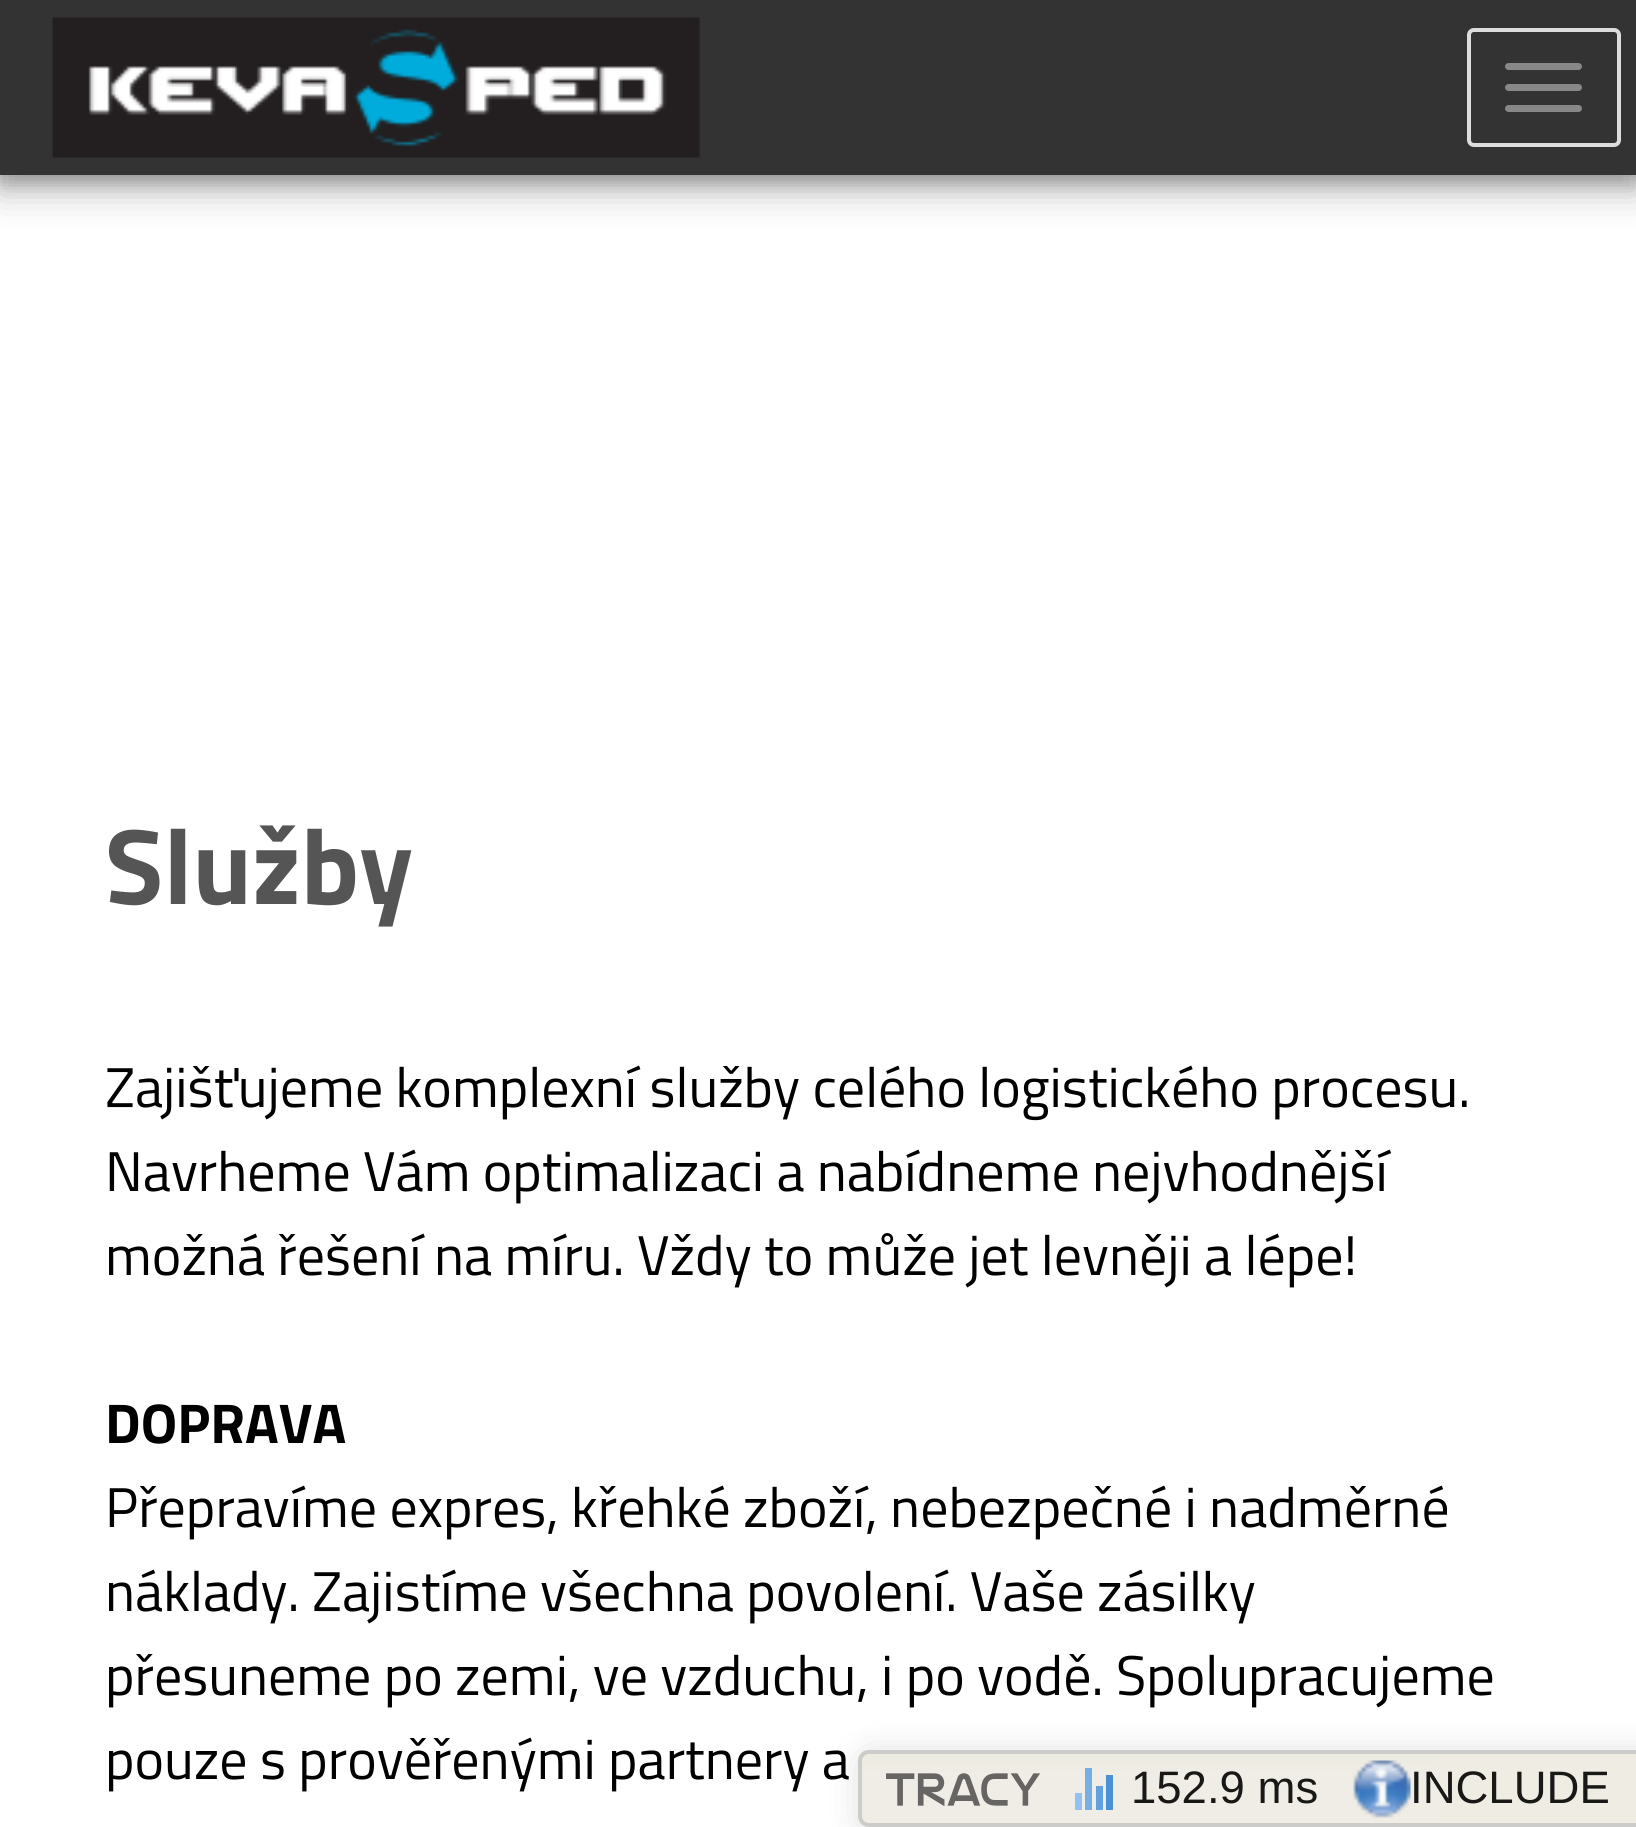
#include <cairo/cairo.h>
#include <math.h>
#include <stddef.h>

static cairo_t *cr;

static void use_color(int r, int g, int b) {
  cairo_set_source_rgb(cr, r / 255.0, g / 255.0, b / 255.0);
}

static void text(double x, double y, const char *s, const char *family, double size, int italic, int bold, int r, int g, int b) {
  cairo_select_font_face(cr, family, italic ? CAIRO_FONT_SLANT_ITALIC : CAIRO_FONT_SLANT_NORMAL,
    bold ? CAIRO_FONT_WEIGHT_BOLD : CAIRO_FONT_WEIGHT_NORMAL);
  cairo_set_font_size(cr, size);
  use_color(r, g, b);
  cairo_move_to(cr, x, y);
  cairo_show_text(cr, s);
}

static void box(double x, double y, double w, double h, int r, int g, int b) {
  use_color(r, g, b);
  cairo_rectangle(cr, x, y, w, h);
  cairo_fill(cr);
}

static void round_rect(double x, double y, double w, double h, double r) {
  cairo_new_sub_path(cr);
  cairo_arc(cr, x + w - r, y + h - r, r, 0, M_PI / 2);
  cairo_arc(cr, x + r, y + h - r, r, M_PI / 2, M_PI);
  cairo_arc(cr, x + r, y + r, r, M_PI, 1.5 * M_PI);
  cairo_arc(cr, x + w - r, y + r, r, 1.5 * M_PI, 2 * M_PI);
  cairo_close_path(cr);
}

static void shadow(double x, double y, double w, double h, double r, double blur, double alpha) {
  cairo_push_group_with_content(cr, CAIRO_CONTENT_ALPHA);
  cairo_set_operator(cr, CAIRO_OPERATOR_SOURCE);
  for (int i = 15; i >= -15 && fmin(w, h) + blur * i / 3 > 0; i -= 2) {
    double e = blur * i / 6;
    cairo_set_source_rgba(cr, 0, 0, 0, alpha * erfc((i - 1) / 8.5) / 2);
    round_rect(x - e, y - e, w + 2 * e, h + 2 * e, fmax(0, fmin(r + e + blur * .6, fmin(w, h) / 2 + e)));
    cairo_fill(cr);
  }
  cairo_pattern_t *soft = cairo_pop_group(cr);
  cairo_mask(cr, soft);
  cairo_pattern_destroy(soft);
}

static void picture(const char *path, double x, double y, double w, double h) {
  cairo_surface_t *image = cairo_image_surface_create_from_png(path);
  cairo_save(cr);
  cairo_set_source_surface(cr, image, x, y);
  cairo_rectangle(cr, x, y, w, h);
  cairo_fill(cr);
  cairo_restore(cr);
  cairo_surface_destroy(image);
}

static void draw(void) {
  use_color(255, 255, 255);
  cairo_paint(cr);
  use_color(0, 0, 0);
  shadow(-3, 0, 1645, 182, 0, 9, 0.3);
  shadow(0, 21, 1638, 175, 0, 17.5, 0.2);
  box(0, 0, 1636, 175, 51, 51, 51);
  picture("img_01.png", 52, 17, 648, 141);
  round_rect(1469, 30, 150, 115, 5);
  use_color(221, 221, 221);
  cairo_set_line_width(cr, 4);
  cairo_stroke(cr);
  use_color(136, 136, 136);
  round_rect(1505, 63, 77, 7, 3.5);
  cairo_fill(cr);
  round_rect(1505, 84, 77, 7, 3.5);
  cairo_fill(cr);
  round_rect(1505, 105, 77, 7, 3.5);
  cairo_fill(cr);
  cairo_save(cr);
  cairo_set_fill_rule(cr, CAIRO_FILL_RULE_EVEN_ODD);
  cairo_new_path(cr);
  cairo_move_to(cr, 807, 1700);
  cairo_line_to(cr, 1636, 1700);
  cairo_line_to(cr, 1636, 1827);
  cairo_line_to(cr, 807, 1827);
  cairo_close_path(cr);
  cairo_move_to(cr, 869, 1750);
  cairo_line_to(cr, 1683, 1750);
  cairo_curve_to(cr, 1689, 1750, 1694, 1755, 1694, 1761);
  cairo_line_to(cr, 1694, 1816);
  cairo_curve_to(cr, 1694, 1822, 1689, 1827, 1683, 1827);
  cairo_line_to(cr, 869, 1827);
  cairo_curve_to(cr, 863, 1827, 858, 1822, 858, 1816);
  cairo_line_to(cr, 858, 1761);
  cairo_curve_to(cr, 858, 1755, 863, 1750, 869, 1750);
  cairo_close_path(cr);
  cairo_clip(cr);
  use_color(0, 0, 0);
  shadow(861, 1754, 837, 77, 11, 17.5, 0.14);
  cairo_restore(cr);
  cairo_set_source_rgba(cr, 0.929, 0.918, 0.878, 0.9);
  round_rect(858, 1750, 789, 77, 11);
  cairo_fill(cr);
  picture("img_02.png", 858, 1750, 581, 77);
  round_rect(860, 1752, 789, 73, 9);
  cairo_set_source_rgba(cr, 0.788, 0.788, 0.788, 0.9);
  cairo_stroke(cr);
  picture("img_03.png", 886, 1773, 154, 34);
  box(1075, 1793, 7, 17, 146, 194, 242);
  cairo_set_source_rgba(cr, 0.42, 0.663, 0.902, 0.9);
  cairo_rectangle(cr, 1085, 1768, 7, 42);
  cairo_fill(cr);
  box(1096, 1786, 7, 24, 97, 161, 224);
  cairo_set_source_rgba(cr, 0.224, 0.529, 0.831, 0.9);
  cairo_rectangle(cr, 1106, 1775, 7, 35);
  cairo_fill(cr);
  picture("img_04.png", 1353, 1760, 58, 58);
  text(105, 904, "Služby", "Titillium Web", 107.5, 0, 1, 85, 85, 85);
  text(105, 1107, "Zajišťujeme komplexní služby celého logistického procesu.", "Titillium Web", 56, 0, 0, 0, 0, 0);
  text(105, 1191, "Navrheme Vám optimalizaci a nabídneme nejvhodnější", "Titillium Web", 56, 0, 0, 0, 0, 0);
  text(105, 1275, "možná řešení na míru. Vždy to může jet levněji a lépe!", "Titillium Web", 56, 0, 0, 0, 0, 0);
  text(105, 1443, "DOPRAVA", "Titillium Web", 56, 0, 1, 0, 0, 0);
  text(105, 1527, "Přepravíme expres, křehké zboží, nebezpečné i nadměrné", "Titillium Web", 56, 0, 0, 0, 0, 0);
  text(105, 1611, "náklady. Zajistíme všechna povolení. Vaše zásilky", "Titillium Web", 56, 0, 0, 0, 0, 0);
  text(105, 1695, "přesuneme po zemi, ve vzduchu, i po vodě. Spolupracujeme", "Titillium Web", 56, 0, 0, 0, 0, 0);
  text(105, 1779, "pouze s prověřenými partnery a", "Titillium Web", 56, 0, 0, 0, 0, 0);
  text(1131, 1803, "152.9 ms", "Liberation Sans", 45.5, 0, 0, 24, 24, 23);
  text(1410, 1803, "INCLUDE", "Liberation Sans", 45.5, 0, 0, 24, 24, 23);
}

int main(void) {
  cairo_surface_t *surface = cairo_image_surface_create(CAIRO_FORMAT_RGB24, 1636, 1827);
  cr = cairo_create(surface);
  cairo_font_options_t *options = cairo_font_options_create();
  cairo_font_options_set_hint_metrics(options, CAIRO_HINT_METRICS_OFF);
  cairo_font_options_set_hint_style(options, CAIRO_HINT_STYLE_NONE);
  cairo_set_font_options(cr, options);
  cairo_set_miter_limit(cr, 4);
  draw();
  cairo_surface_write_to_png(surface, "out.png");
  cairo_font_options_destroy(options);
  cairo_destroy(cr);
  cairo_surface_destroy(surface);
  return 0;
}
